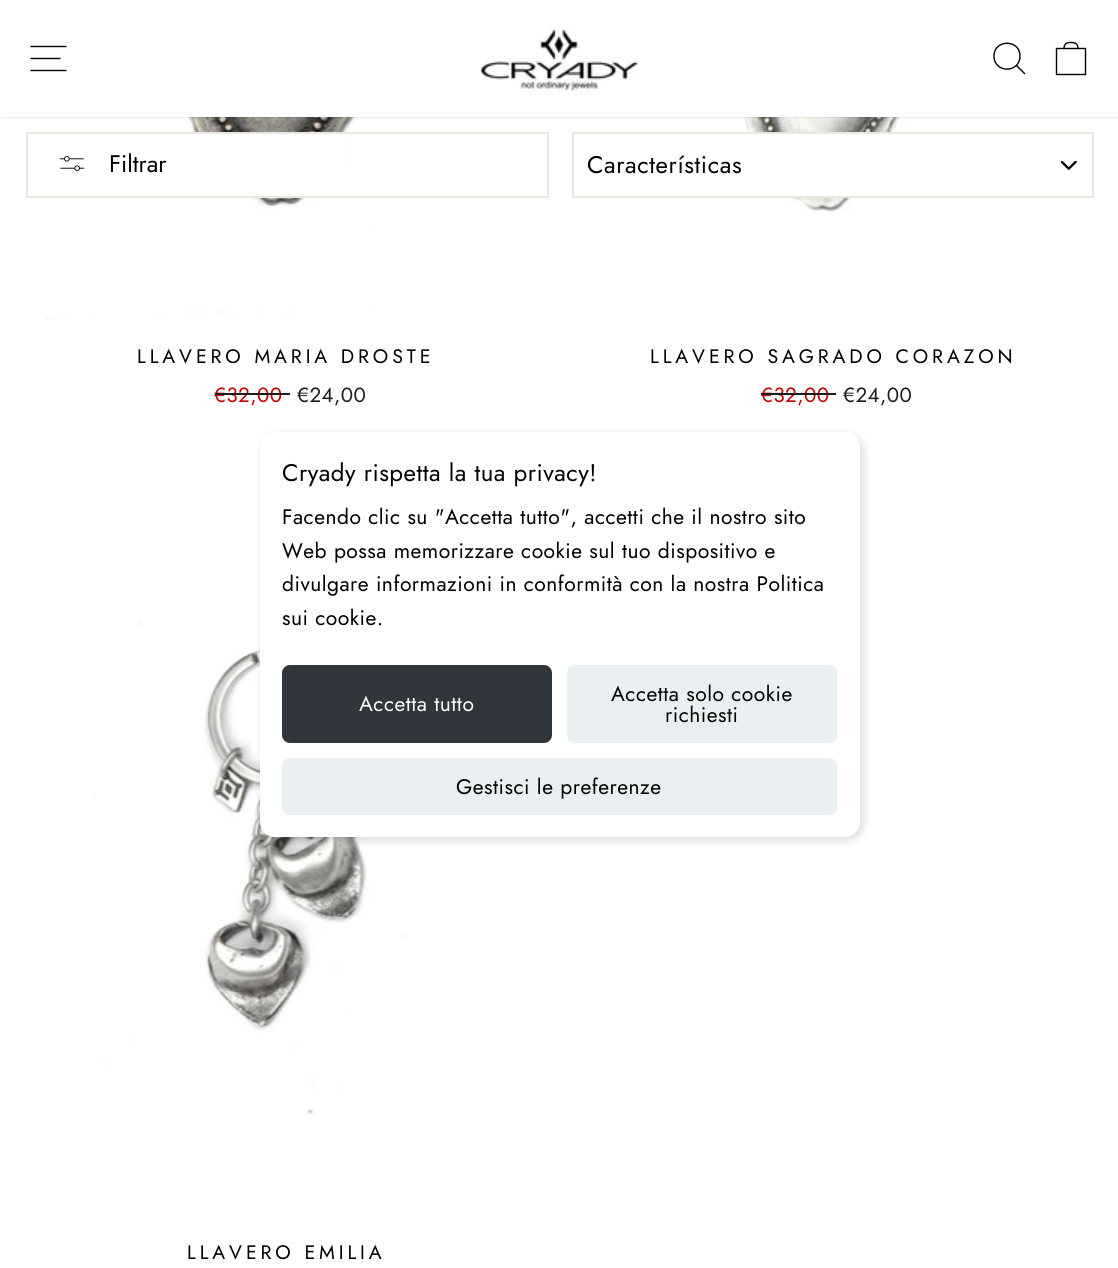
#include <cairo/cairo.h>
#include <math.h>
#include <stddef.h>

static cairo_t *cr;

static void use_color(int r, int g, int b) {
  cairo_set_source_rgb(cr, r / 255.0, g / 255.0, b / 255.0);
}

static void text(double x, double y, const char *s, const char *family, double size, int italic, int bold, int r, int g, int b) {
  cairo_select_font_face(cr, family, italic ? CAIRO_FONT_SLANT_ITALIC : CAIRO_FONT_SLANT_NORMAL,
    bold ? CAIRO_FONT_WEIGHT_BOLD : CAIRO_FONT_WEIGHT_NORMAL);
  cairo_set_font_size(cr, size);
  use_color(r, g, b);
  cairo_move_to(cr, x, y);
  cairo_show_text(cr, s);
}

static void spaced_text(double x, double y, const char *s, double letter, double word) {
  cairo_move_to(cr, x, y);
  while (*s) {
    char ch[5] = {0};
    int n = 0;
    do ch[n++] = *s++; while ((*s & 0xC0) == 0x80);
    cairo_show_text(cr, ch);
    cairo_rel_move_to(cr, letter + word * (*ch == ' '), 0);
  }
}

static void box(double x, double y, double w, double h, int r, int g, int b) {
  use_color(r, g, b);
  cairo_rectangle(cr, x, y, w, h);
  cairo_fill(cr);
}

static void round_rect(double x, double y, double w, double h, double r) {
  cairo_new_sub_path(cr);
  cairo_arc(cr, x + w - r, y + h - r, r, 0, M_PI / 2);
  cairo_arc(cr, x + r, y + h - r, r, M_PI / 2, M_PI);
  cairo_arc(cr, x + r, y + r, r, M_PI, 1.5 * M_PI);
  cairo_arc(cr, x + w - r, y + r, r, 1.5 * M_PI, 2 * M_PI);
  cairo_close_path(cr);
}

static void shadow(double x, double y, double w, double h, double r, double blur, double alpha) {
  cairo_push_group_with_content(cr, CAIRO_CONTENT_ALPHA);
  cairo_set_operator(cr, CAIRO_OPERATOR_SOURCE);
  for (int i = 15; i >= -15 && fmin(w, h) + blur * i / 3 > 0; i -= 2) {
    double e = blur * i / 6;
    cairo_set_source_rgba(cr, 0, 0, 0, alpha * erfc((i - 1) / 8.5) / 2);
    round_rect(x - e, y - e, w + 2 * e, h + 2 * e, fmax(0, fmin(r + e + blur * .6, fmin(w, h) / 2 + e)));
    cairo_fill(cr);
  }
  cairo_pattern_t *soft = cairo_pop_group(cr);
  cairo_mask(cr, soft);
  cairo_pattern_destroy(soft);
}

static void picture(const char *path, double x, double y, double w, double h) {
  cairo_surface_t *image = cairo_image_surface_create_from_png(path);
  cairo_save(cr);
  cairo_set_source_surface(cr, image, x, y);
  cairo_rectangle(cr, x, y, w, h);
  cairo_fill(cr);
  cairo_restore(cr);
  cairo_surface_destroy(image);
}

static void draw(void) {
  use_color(255, 255, 255);
  cairo_paint(cr);
  picture("img_04.png", 45, 117, 329, 203);
  picture("img_05.png", 741, 117, 168, 95);
  use_color(0, 0, 0);
  shadow(0, 0, 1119, 117, 0, 1, 0.2);
  box(0, 0, 1118, 117, 255, 255, 255);
  cairo_new_path(cr);
  cairo_move_to(cr, 30.5, 46.5);
  cairo_line_to(cr, 66.5, 46.5);
  cairo_move_to(cr, 30.5, 58.5);
  cairo_line_to(cr, 60.5, 58.5);
  cairo_move_to(cr, 30.5, 70.5);
  cairo_line_to(cr, 66.5, 70.5);
  use_color(0, 0, 0);
  cairo_set_line_width(cr, 1.4);
  cairo_stroke(cr);
  picture("img_01.png", 480, 27, 159, 65);
  cairo_new_path(cr);
  cairo_move_to(cr, 1020, 56);
  cairo_curve_to(cr, 1020, 73.5, 994, 73.5, 994, 56);
  cairo_curve_to(cr, 994, 39, 1020, 39, 1020, 56);
  cairo_close_path(cr);
  cairo_move_to(cr, 1025, 74);
  cairo_line_to(cr, 1016.5, 65.5);
  cairo_stroke(cr);
  cairo_new_path(cr);
  cairo_move_to(cr, 1056.5, 48.5);
  cairo_line_to(cr, 1085.5, 48.5);
  cairo_line_to(cr, 1085.5, 74.5);
  cairo_line_to(cr, 1056.5, 74.5);
  cairo_close_path(cr);
  cairo_move_to(cr, 1064, 48.5);
  cairo_curve_to(cr, 1064, 43.5, 1067, 42.5, 1071, 42.5);
  cairo_curve_to(cr, 1075, 42.5, 1078, 43.5, 1078, 48.5);
  cairo_stroke(cr);
  box(188, 134, 162, 62, 255, 255, 255);
  cairo_rectangle(cr, 27, 133, 521, 64);
  use_color(232, 232, 225);
  cairo_set_line_width(cr, 2);
  cairo_stroke(cr);
  picture("img_02.png", 59, 156, 26, 15);
  box(746, 134, 151, 62, 255, 255, 255);
  picture("img_03.png", 1061, 161, 16, 9);
  cairo_rectangle(cr, 573, 133, 520, 64);
  use_color(232, 232, 225);
  cairo_stroke(cr);
  picture("img_06.png", 92, 479, 384, 635);
  use_color(0, 0, 0);
  shadow(263, 435, 600, 405, 15, 4.5, 0.15);
  use_color(255, 255, 255);
  round_rect(260, 432, 600, 405, 15);
  cairo_fill(cr);
  use_color(48, 54, 60);
  round_rect(282, 665, 270, 78, 8);
  cairo_fill(cr);
  use_color(234, 239, 242);
  round_rect(567, 665, 270, 78, 8);
  cairo_fill(cr);
  round_rect(282, 758, 555, 57, 8);
  cairo_fill(cr);
  text(109, 172, "Filtrar", "Jost", 24, 0, 0, 0, 0, 0);
  spaced_text(587, 173, "Características", 0.6, 0);
  cairo_set_font_size(cr, 19.5);
  spaced_text(137, 363, "LLAVERO MARIA DROSTE", 3.9, 0);
  cairo_set_font_size(cr, 20.5);
  use_color(194, 0, 0);
  spaced_text(214, 402, "€32,00", 0.5, 0);
  box(215, 393, 75, 2, 28, 29, 29);
  spaced_text(297, 402, "€24,00", 0.5, 0);
  cairo_set_font_size(cr, 19.5);
  use_color(0, 0, 0);
  spaced_text(650, 363, "LLAVERO SAGRADO CORAZON", 3.9, 0);
  cairo_set_font_size(cr, 20.5);
  use_color(194, 0, 0);
  spaced_text(761, 402, "€32,00", 0.5, 0);
  box(761, 393, 75, 2, 28, 29, 29);
  spaced_text(843, 402, "€24,00", 0.5, 0);
  cairo_set_font_size(cr, 19.5);
  use_color(0, 0, 0);
  spaced_text(187, 1259, "LLAVERO EMILIA", 3.9, 0);
  cairo_set_font_size(cr, 24);
  spaced_text(282, 481, "Cryady rispetta la tua privacy!", 0.5, 0);
  cairo_set_font_size(cr, 21);
  spaced_text(282, 524, "Facendo clic su \"Accetta tutto\", accetti che il nostro sito", 0.5, 0);
  spaced_text(282, 558, "Web possa memorizzare cookie sul tuo dispositivo e", 0.5, 0);
  spaced_text(282, 591, "divulgare informazioni in conformità con la nostra Politica", 0.5, 0);
  spaced_text(282, 625, "sui cookie.", 0.5, 0);
  use_color(255, 255, 255);
  spaced_text(359, 711, "Accetta tutto", 0.5, 0);
  use_color(0, 0, 0);
  spaced_text(611, 701, "Accetta solo cookie", 0.5, 0);
  spaced_text(665, 722, "richiesti", 0.5, 0);
  spaced_text(456, 794, "Gestisci le preferenze", 0.5, 0);
}

int main(void) {
  cairo_surface_t *surface = cairo_image_surface_create(CAIRO_FORMAT_RGB24, 1118, 1268);
  cr = cairo_create(surface);
  cairo_font_options_t *options = cairo_font_options_create();
  cairo_font_options_set_hint_metrics(options, CAIRO_HINT_METRICS_OFF);
  cairo_font_options_set_hint_style(options, CAIRO_HINT_STYLE_NONE);
  cairo_set_font_options(cr, options);
  cairo_set_miter_limit(cr, 4);
  draw();
  cairo_surface_write_to_png(surface, "out.png");
  cairo_font_options_destroy(options);
  cairo_destroy(cr);
  cairo_surface_destroy(surface);
  return 0;
}
